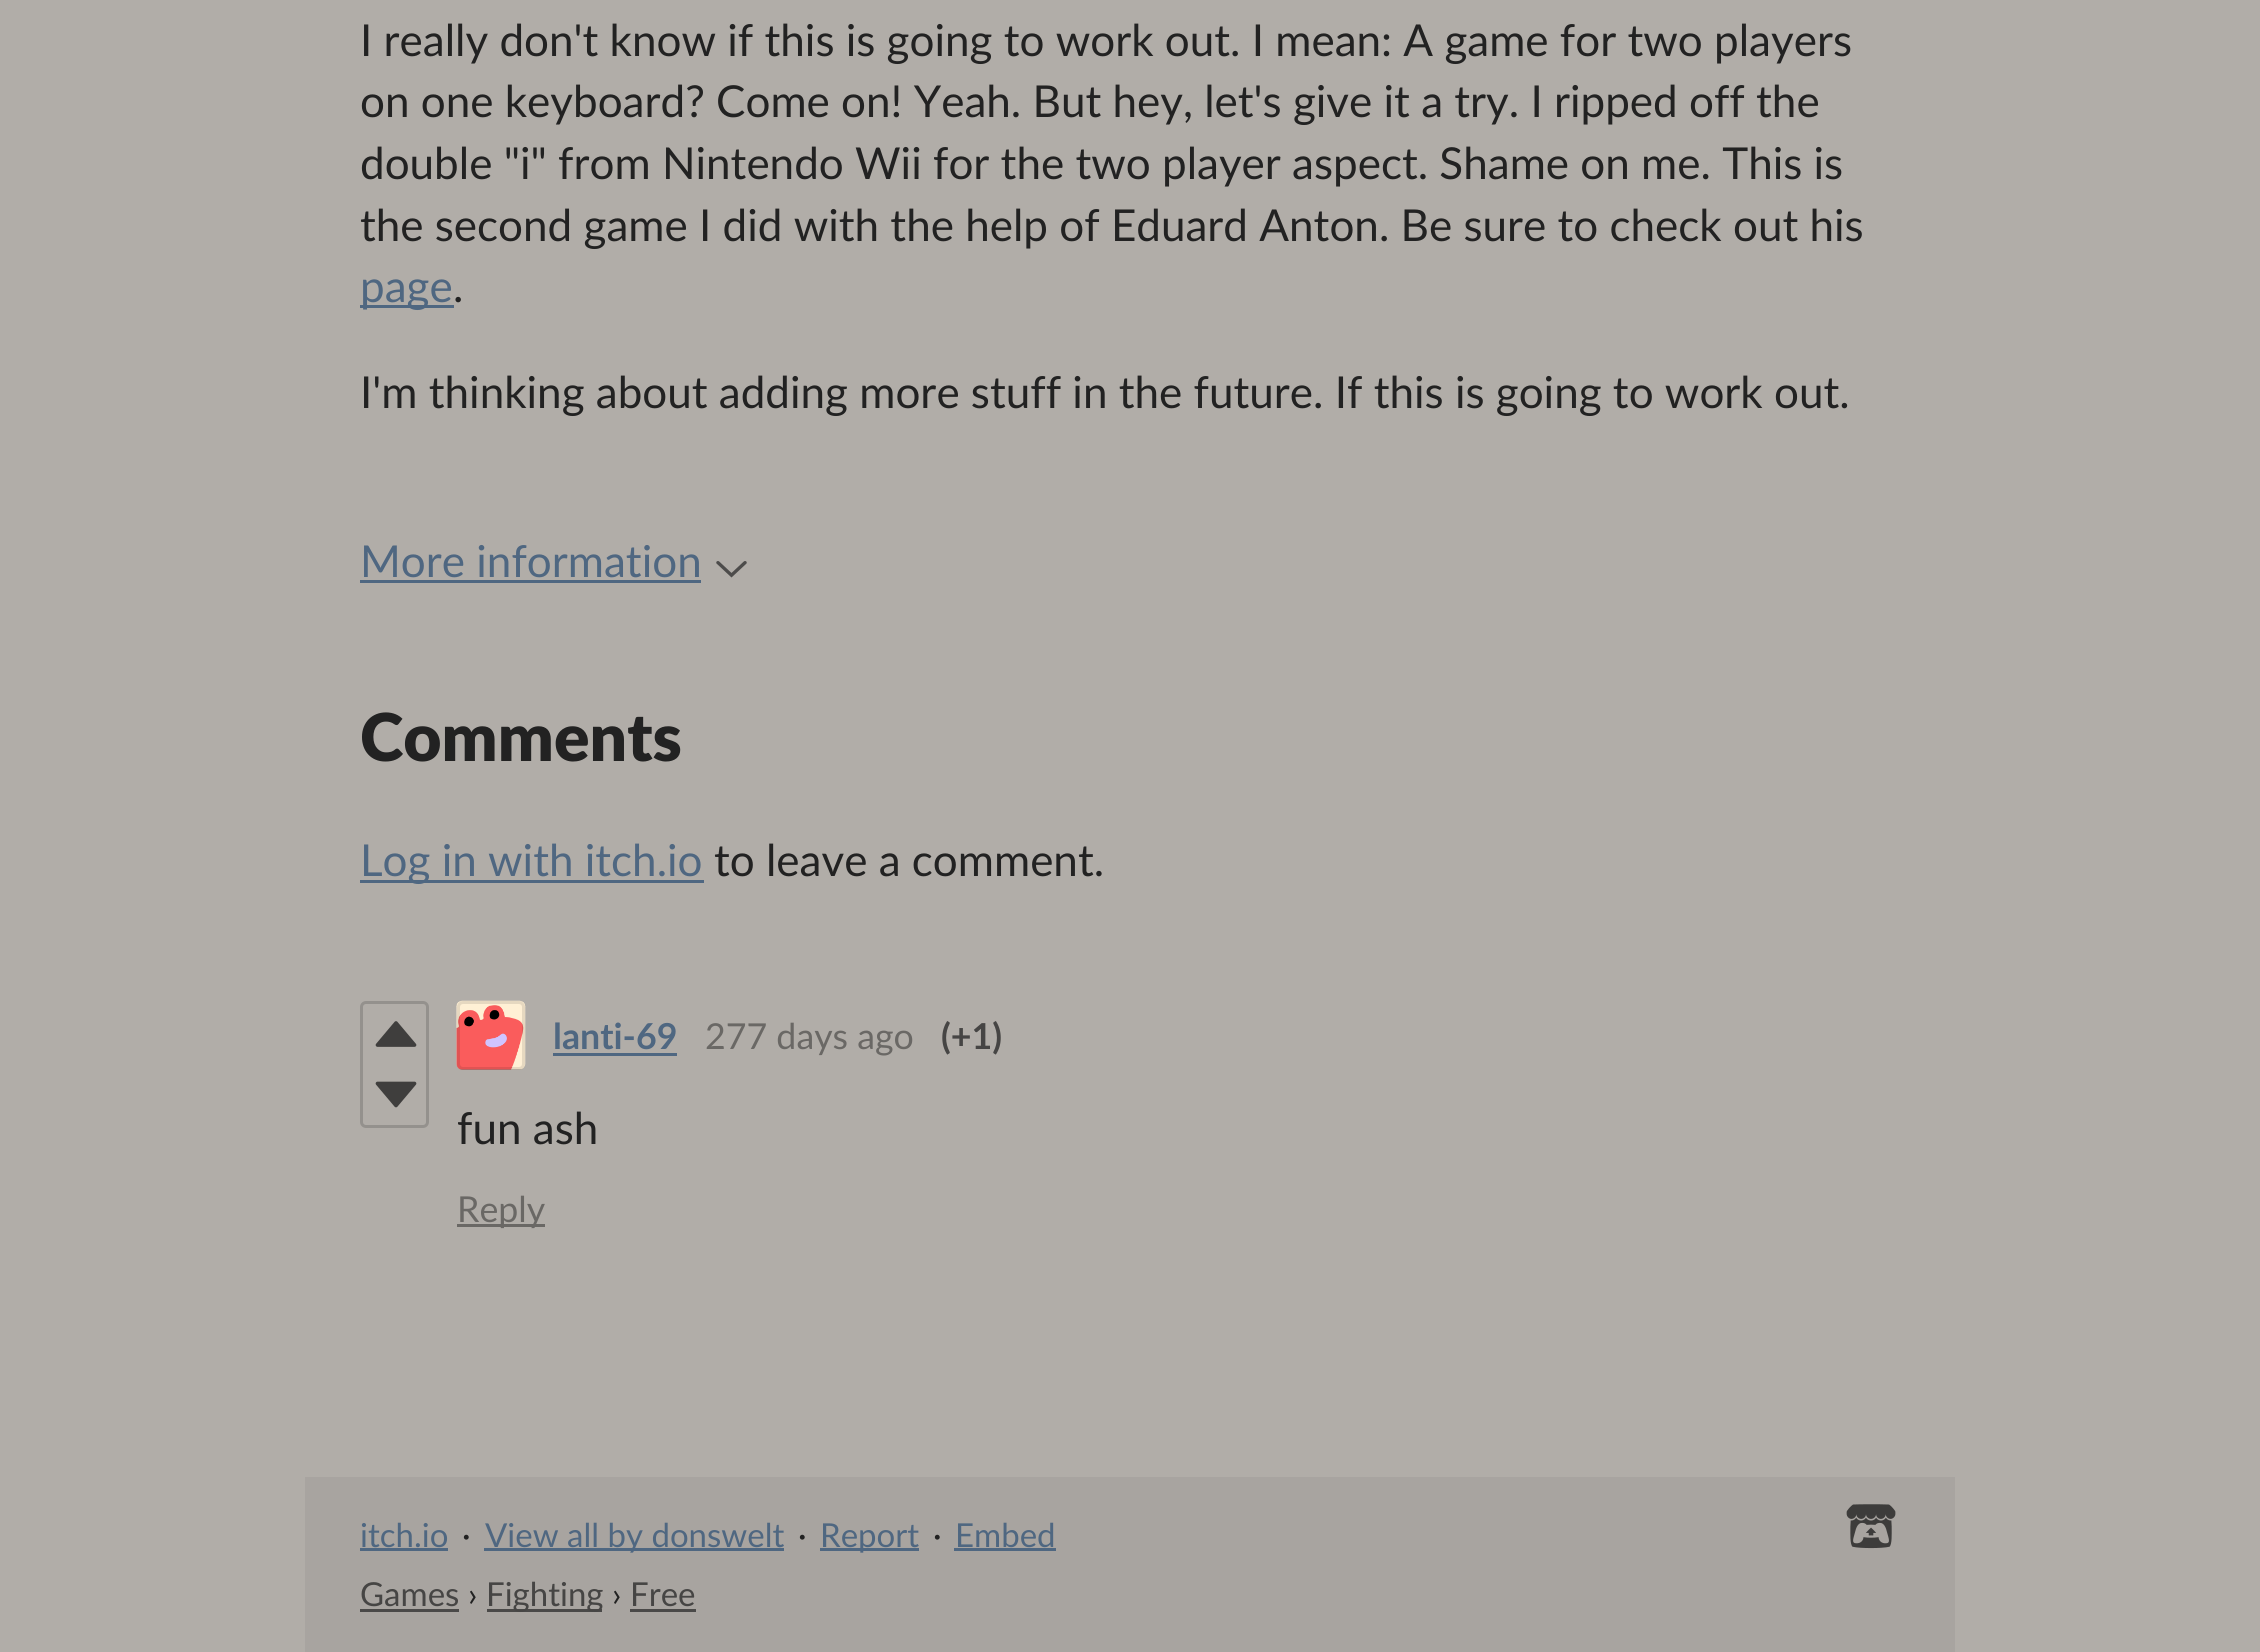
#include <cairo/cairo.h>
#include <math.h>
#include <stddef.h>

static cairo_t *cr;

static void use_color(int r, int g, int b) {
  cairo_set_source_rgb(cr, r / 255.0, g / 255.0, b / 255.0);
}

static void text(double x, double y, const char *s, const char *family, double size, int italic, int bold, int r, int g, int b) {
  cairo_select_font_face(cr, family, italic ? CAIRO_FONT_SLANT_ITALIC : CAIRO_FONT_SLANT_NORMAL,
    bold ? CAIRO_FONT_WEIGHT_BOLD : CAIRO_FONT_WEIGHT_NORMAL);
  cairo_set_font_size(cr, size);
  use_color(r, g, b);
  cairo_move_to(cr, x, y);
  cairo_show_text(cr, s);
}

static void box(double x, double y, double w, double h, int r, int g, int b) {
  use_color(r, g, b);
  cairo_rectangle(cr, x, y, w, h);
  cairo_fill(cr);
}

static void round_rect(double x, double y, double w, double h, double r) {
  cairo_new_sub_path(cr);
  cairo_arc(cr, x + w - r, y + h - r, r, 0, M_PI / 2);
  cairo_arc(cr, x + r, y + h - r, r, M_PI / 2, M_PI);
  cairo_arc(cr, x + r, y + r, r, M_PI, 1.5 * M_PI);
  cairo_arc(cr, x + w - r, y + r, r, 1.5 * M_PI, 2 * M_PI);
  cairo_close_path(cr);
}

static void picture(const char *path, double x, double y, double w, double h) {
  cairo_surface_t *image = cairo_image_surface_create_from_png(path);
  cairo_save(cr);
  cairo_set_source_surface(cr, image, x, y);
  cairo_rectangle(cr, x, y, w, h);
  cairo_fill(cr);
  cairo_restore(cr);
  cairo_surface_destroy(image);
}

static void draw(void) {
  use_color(177, 173, 168);
  cairo_paint(cr);
  box(360, 305, 94, 3, 79, 103, 129);
  box(360, 580, 341, 3, 79, 103, 129);
  picture("img_01.png", 716, 561, 31, 17);
  box(360, 880, 344, 3, 79, 103, 129);
  round_rect(361.5, 1002.5, 66, 124, 4.5);
  use_color(148, 145, 141);
  cairo_set_line_width(cr, 3);
  cairo_stroke(cr);
  use_color(63, 62, 61);
  cairo_new_path(cr);
  cairo_move_to(cr, 377.5, 1045);
  cairo_line_to(cr, 396, 1023);
  cairo_line_to(cr, 414.5, 1045);
  cairo_close_path(cr);
  cairo_fill_preserve(cr);
  cairo_set_line_width(cr, 3.7);
  cairo_set_line_join(cr, CAIRO_LINE_JOIN_ROUND);
  cairo_stroke(cr);
  cairo_new_path(cr);
  cairo_move_to(cr, 377.5, 1083.5);
  cairo_line_to(cr, 396, 1105.5);
  cairo_line_to(cr, 414.5, 1083.5);
  cairo_close_path(cr);
  cairo_fill_preserve(cr);
  cairo_stroke(cr);
  use_color(142, 138, 134);
  round_rect(457, 1001, 68, 69, 6);
  cairo_fill(cr);
  picture("img_02.png", 456, 1000, 70, 70);
  round_rect(458.5, 1002.5, 65, 66, 4.5);
  cairo_set_source_rgba(cr, 0, 0, 0, 0.1);
  cairo_set_line_width(cr, 3);
  cairo_set_line_join(cr, CAIRO_LINE_JOIN_MITER);
  cairo_stroke(cr);
  box(553, 1053, 124, 3, 79, 103, 129);
  box(457, 1224, 88, 3, 106, 104, 101);
  box(305, 1477, 1650, 175, 168, 164, 160);
  box(360, 1548, 88, 3, 79, 103, 129);
  box(484, 1548, 300, 3, 79, 103, 129);
  box(820, 1548, 99, 3, 79, 103, 129);
  box(954, 1548, 102, 3, 79, 103, 129);
  picture("img_03.png", 1846, 1504, 50, 45);
  box(360, 1609, 99, 3, 74, 73, 72);
  box(487, 1609, 115, 3, 74, 73, 72);
  box(630, 1609, 66, 3, 74, 73, 72);
  text(360, 56, "I really don't know if this is going to work out. I mean: A game for two players", "Lato", 44, 0, 0, 34, 34, 34);
  text(360, 117, "on one keyboard? Come on! Yeah. But hey, let's give it a try. I ripped off the", "Lato", 44, 0, 0, 34, 34, 34);
  text(360, 179, "double \"i\" from Nintendo Wii for the two player aspect. Shame on me. This is", "Lato", 44, 0, 0, 34, 34, 34);
  text(360, 241, "the second game I did with the help of Eduard Anton. Be sure to check out his", "Lato", 44, 0, 0, 34, 34, 34);
  text(360, 302, "page", "Lato", 44, 0, 0, 79, 103, 129);
  text(453, 302, ".", "Lato", 44, 0, 0, 34, 34, 34);
  text(360, 408, "I'm thinking about adding more stuff in the future. If this is going to work out.", "Lato", 44, 0, 0, 34, 34, 34);
  text(360, 577, "More information", "Lato", 44, 0, 0, 79, 103, 129);
  text(360, 761, "Comments", "Lato Black", 66, 0, 0, 34, 34, 34);
  text(360, 876, "Log in with itch.io", "Lato", 44, 0, 0, 79, 103, 129);
  text(714, 876, "to leave a comment.", "Lato", 44, 0, 0, 34, 34, 34);
  text(553, 1049, "lanti-69", "Lato", 35.75, 0, 1, 79, 103, 129);
  text(705, 1049, "277 days ago", "Lato", 35.75, 0, 0, 106, 104, 101);
  text(941, 1049, "(+1)", "Lato", 35.75, 0, 1, 70, 69, 68);
  text(457, 1144, "fun ash", "Lato", 44, 0, 0, 34, 34, 34);
  text(457, 1222, "Reply", "Lato", 35.75, 0, 0, 106, 104, 101);
  text(360, 1547, "itch.io", "Lato", 33, 0, 0, 79, 103, 129);
  text(462, 1547, "·", "Lato", 33, 0, 0, 34, 34, 34);
  text(485, 1547, "View all by donswelt", "Lato", 33, 0, 0, 79, 103, 129);
  text(798, 1547, "·", "Lato", 33, 0, 0, 34, 34, 34);
  text(820, 1547, "Report", "Lato", 33, 0, 0, 79, 103, 129);
  text(933, 1547, "·", "Lato", 33, 0, 0, 34, 34, 34);
  text(955, 1547, "Embed", "Lato", 33, 0, 0, 79, 103, 129);
  text(360, 1606, "Games", "Lato", 33, 0, 0, 70, 69, 68);
  text(468, 1606, "›", "Lato", 33, 0, 0, 34, 34, 34);
  text(486, 1606, "Fighting", "Lato", 33, 0, 0, 70, 69, 68);
  text(612, 1606, "›", "Lato", 33, 0, 0, 34, 34, 34);
  text(630, 1606, "Free", "Lato", 33, 0, 0, 70, 69, 68);
}

int main(void) {
  cairo_surface_t *surface = cairo_image_surface_create(CAIRO_FORMAT_RGB24, 2260, 1652);
  cr = cairo_create(surface);
  cairo_font_options_t *options = cairo_font_options_create();
  cairo_font_options_set_hint_metrics(options, CAIRO_HINT_METRICS_OFF);
  cairo_font_options_set_hint_style(options, CAIRO_HINT_STYLE_NONE);
  cairo_set_font_options(cr, options);
  cairo_set_miter_limit(cr, 4);
  draw();
  cairo_surface_write_to_png(surface, "out.png");
  cairo_font_options_destroy(options);
  cairo_destroy(cr);
  cairo_surface_destroy(surface);
  return 0;
}
